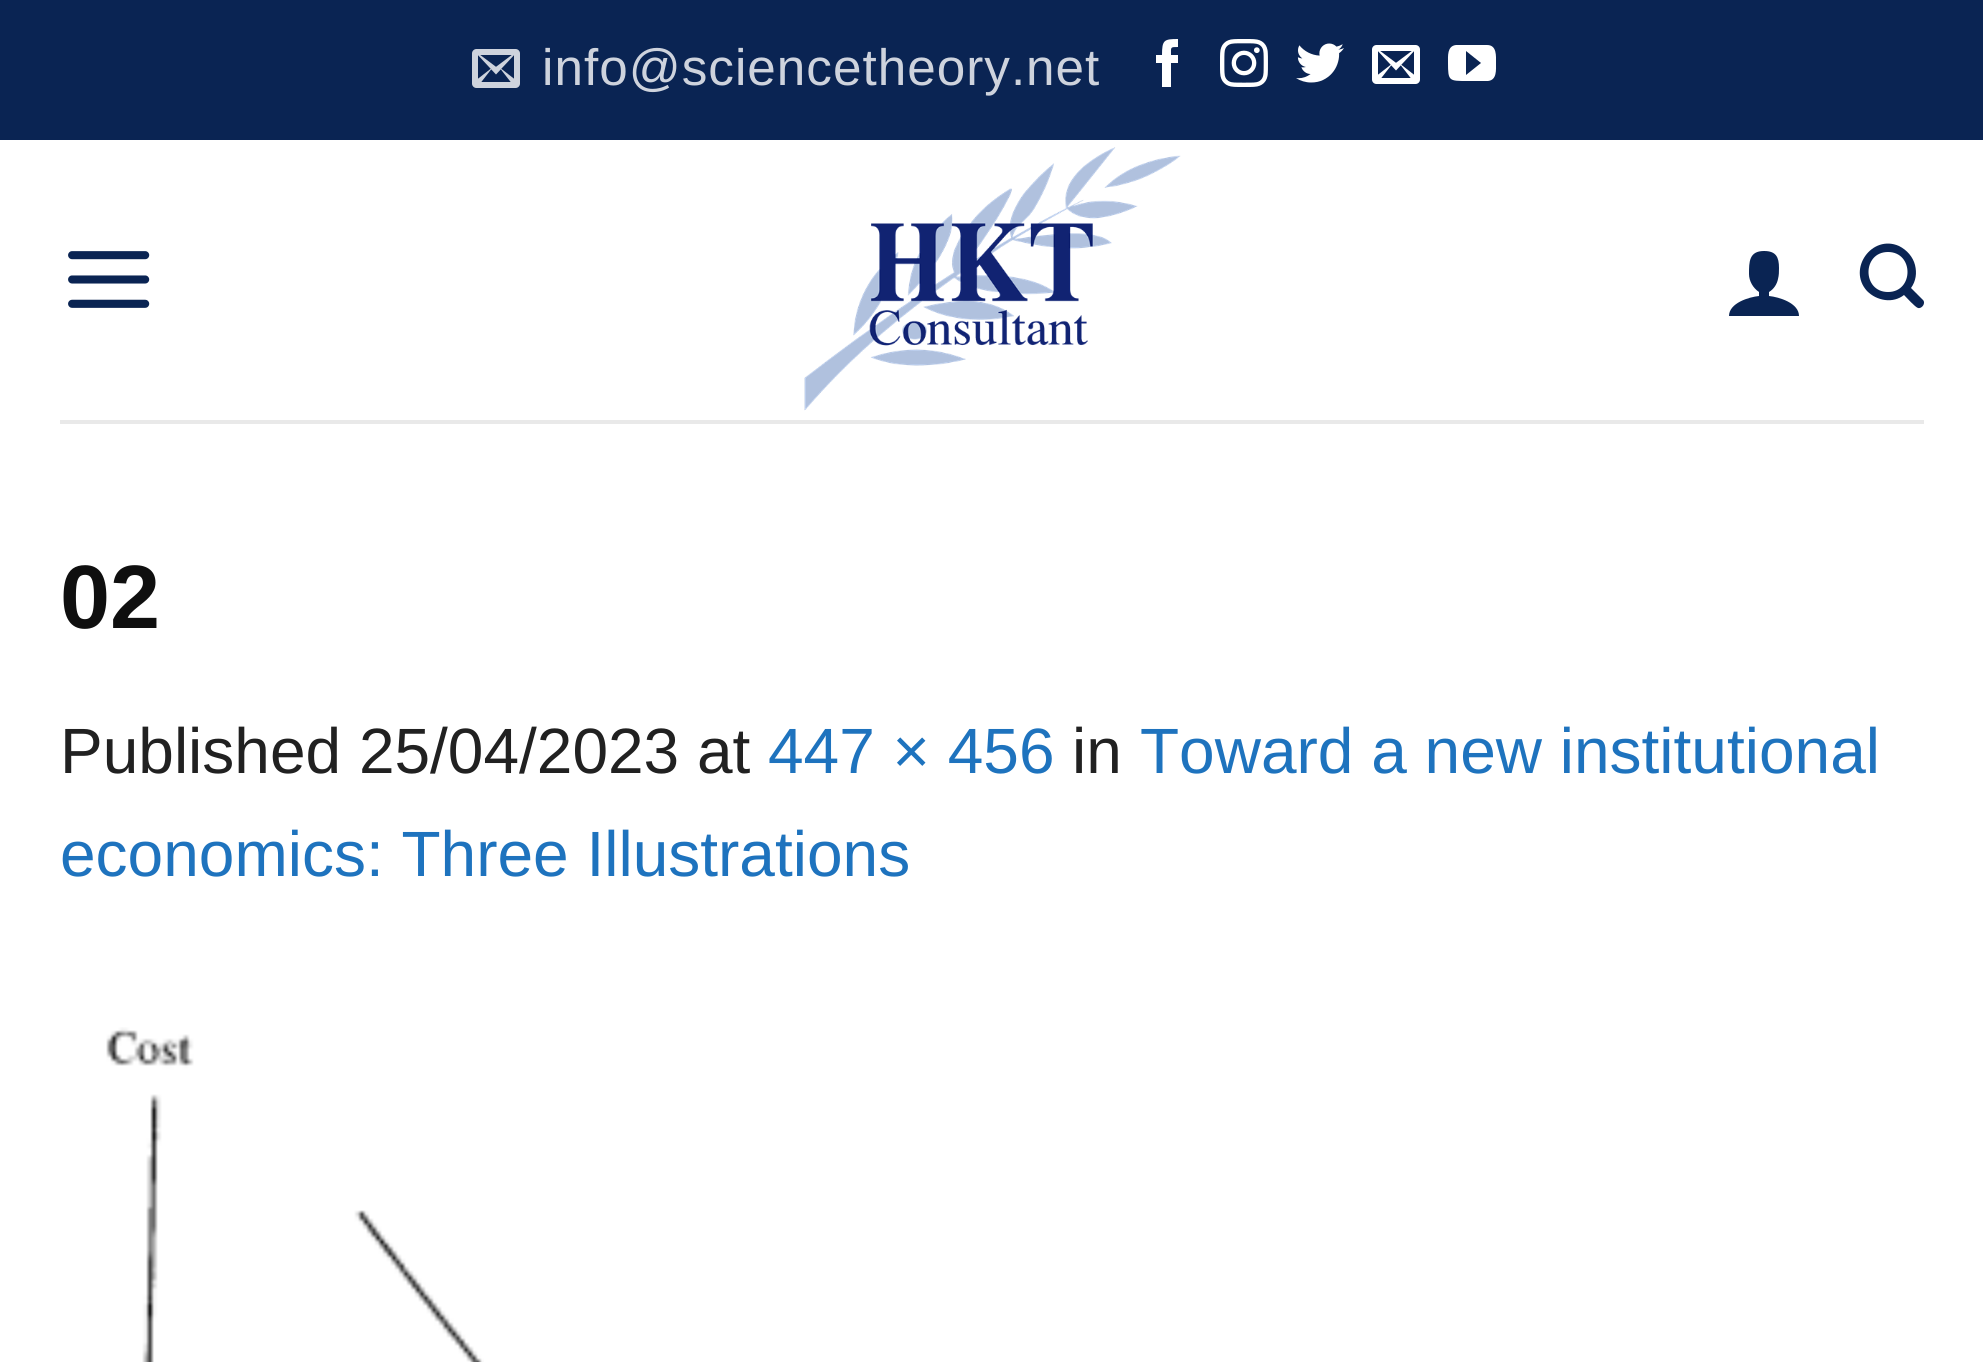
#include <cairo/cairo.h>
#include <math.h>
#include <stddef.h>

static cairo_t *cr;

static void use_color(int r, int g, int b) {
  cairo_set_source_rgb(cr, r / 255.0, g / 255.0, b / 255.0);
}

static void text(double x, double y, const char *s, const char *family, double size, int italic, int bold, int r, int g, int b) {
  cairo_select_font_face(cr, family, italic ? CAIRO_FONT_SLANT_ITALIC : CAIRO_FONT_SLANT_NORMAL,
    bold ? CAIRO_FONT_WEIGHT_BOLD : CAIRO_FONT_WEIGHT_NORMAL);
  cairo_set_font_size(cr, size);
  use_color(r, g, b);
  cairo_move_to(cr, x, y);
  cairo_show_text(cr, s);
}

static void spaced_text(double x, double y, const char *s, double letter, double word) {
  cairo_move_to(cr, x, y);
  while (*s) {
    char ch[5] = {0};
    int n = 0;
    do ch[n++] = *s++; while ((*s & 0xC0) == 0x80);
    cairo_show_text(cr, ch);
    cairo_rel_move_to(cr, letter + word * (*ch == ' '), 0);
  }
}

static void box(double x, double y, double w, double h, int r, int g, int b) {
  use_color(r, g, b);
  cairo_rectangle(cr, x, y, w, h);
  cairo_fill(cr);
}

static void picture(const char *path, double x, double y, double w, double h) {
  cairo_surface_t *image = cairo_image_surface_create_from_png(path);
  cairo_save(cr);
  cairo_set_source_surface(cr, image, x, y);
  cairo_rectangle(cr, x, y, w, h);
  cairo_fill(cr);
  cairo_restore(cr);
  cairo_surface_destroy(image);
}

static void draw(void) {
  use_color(255, 255, 255);
  cairo_paint(cr);
  box(0, 0, 1983, 140, 10, 36, 83);
  picture("img_01.png", 472, 49, 48, 39);
  use_color(255, 255, 255);
  cairo_new_path(cr);
  cairo_move_to(cr, 1171, 87);
  cairo_line_to(cr, 1162, 87);
  cairo_line_to(cr, 1162, 63);
  cairo_line_to(cr, 1156, 63);
  cairo_line_to(cr, 1156, 55);
  cairo_line_to(cr, 1162, 55);
  cairo_curve_to(cr, 1162, 40, 1164, 39, 1178, 39);
  cairo_line_to(cr, 1178, 47);
  cairo_curve_to(cr, 1170, 47, 1171, 47, 1171, 55);
  cairo_line_to(cr, 1178, 55);
  cairo_line_to(cr, 1178, 63);
  cairo_line_to(cr, 1171, 63);
  cairo_close_path(cr);
  cairo_fill(cr);
  picture("img_02.png", 1220, 39, 48, 48);
  picture("img_03.png", 1296, 43, 48, 40);
  picture("img_04.png", 1372, 45, 48, 39);
  cairo_new_path(cr);
  cairo_move_to(cr, 1487, 45);
  cairo_line_to(cr, 1456, 45);
  cairo_curve_to(cr, 1447, 46, 1448, 56, 1448, 63);
  cairo_curve_to(cr, 1448, 81, 1449, 81, 1467, 81);
  cairo_line_to(cr, 1488, 81);
  cairo_curve_to(cr, 1497, 80, 1496, 70, 1496, 63);
  cairo_curve_to(cr, 1496, 56, 1497, 45, 1487, 45);
  cairo_close_path(cr);
  cairo_move_to(cr, 1466, 75);
  cairo_line_to(cr, 1466, 51);
  cairo_line_to(cr, 1481, 63);
  cairo_close_path(cr);
  cairo_fill(cr);
  picture("img_05.png", 68, 251, 82, 57);
  picture("img_06.png", 804, 147, 377, 264);
  use_color(10, 36, 83);
  cairo_new_path(cr);
  cairo_move_to(cr, 1769, 296);
  cairo_line_to(cr, 1769, 292);
  cairo_curve_to(cr, 1774, 289, 1777, 284, 1778, 279);
  cairo_curve_to(cr, 1779, 275, 1779, 272, 1779, 268);
  cairo_curve_to(cr, 1779, 257, 1776, 251, 1764, 251);
  cairo_curve_to(cr, 1749, 251, 1749, 262, 1749, 274);
  cairo_curve_to(cr, 1749, 281, 1753, 288, 1759, 292);
  cairo_line_to(cr, 1759, 296);
  cairo_curve_to(cr, 1749, 297, 1729, 303, 1729, 316);
  cairo_line_to(cr, 1799, 316);
  cairo_curve_to(cr, 1799, 303, 1779, 297, 1769, 296);
  cairo_close_path(cr);
  cairo_fill(cr);
  cairo_new_path(cr);
  cairo_move_to(cr, 1923, 300);
  cairo_line_to(cr, 1911, 288);
  cairo_curve_to(cr, 1916, 281, 1917, 273, 1915, 265);
  cairo_curve_to(cr, 1913, 257, 1907, 250, 1899, 246);
  cairo_curve_to(cr, 1872, 234, 1847, 269, 1867, 291);
  cairo_curve_to(cr, 1872, 296, 1878, 299, 1885, 300);
  cairo_curve_to(cr, 1892, 301, 1899, 299, 1904, 295);
  cairo_curve_to(cr, 1907, 298, 1915, 307, 1918, 308);
  cairo_curve_to(cr, 1922, 309, 1926, 303, 1923, 300);
  cairo_close_path(cr);
  cairo_move_to(cr, 1888, 292);
  cairo_curve_to(cr, 1862, 292, 1862, 252, 1888, 252);
  cairo_curve_to(cr, 1914, 252, 1914, 292, 1888, 292);
  cairo_close_path(cr);
  cairo_fill(cr);
  box(60, 420, 1864, 4, 233, 233, 233);
  picture("img_07.png", 106, 1027, 378, 335);
  cairo_select_font_face(cr, "Liberation Sans", CAIRO_FONT_SLANT_NORMAL, CAIRO_FONT_WEIGHT_NORMAL);
  cairo_set_font_size(cr, 51.25);
  use_color(206, 211, 221);
  spaced_text(542, 85, "info@sciencetheory.net", 1, 0);
  text(60, 628, "02", "Liberation Sans", 90, 0, 1, 15, 15, 15);
  text(60, 773, "Published 25/04/2023 at", "Liberation Sans", 64, 0, 0, 33, 33, 33);
  text(768, 773, "447 × 456", "Liberation Sans", 64, 0, 0, 30, 115, 190);
  text(1072, 773, "in", "Liberation Sans", 64, 0, 0, 33, 33, 33);
  text(1140, 773, "Toward a new institutional", "Liberation Sans", 64, 0, 0, 30, 115, 190);
  text(60, 876, "economics: Three Illustrations", "Liberation Sans", 64, 0, 0, 30, 115, 190);
}

int main(void) {
  cairo_surface_t *surface = cairo_image_surface_create(CAIRO_FORMAT_RGB24, 1983, 1362);
  cr = cairo_create(surface);
  cairo_font_options_t *options = cairo_font_options_create();
  cairo_font_options_set_hint_metrics(options, CAIRO_HINT_METRICS_OFF);
  cairo_font_options_set_hint_style(options, CAIRO_HINT_STYLE_NONE);
  cairo_set_font_options(cr, options);
  cairo_set_miter_limit(cr, 4);
  draw();
  cairo_surface_write_to_png(surface, "out.png");
  cairo_font_options_destroy(options);
  cairo_destroy(cr);
  cairo_surface_destroy(surface);
  return 0;
}
